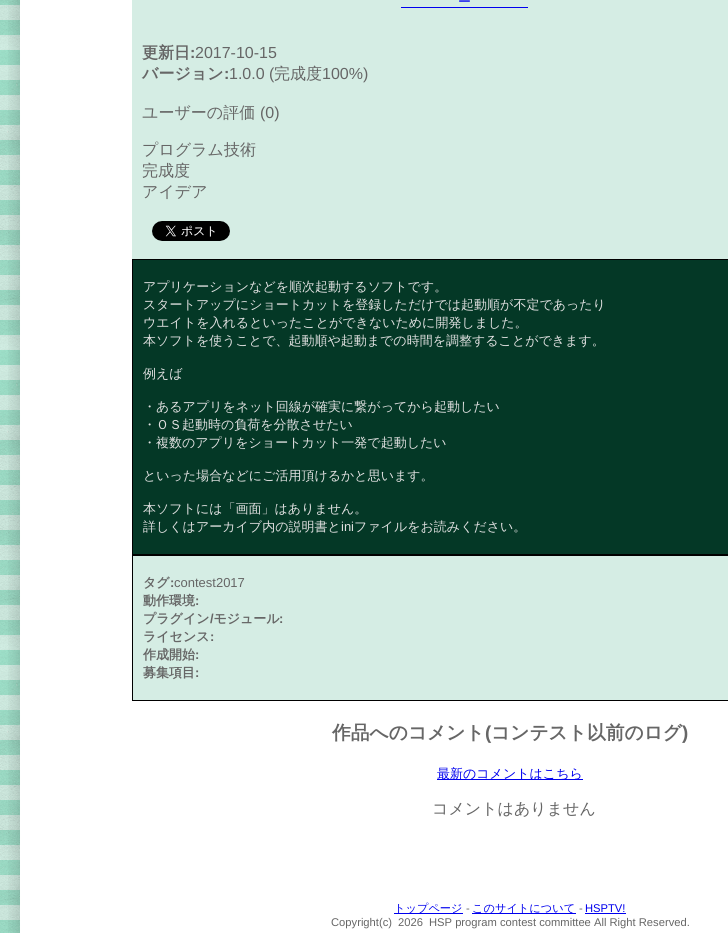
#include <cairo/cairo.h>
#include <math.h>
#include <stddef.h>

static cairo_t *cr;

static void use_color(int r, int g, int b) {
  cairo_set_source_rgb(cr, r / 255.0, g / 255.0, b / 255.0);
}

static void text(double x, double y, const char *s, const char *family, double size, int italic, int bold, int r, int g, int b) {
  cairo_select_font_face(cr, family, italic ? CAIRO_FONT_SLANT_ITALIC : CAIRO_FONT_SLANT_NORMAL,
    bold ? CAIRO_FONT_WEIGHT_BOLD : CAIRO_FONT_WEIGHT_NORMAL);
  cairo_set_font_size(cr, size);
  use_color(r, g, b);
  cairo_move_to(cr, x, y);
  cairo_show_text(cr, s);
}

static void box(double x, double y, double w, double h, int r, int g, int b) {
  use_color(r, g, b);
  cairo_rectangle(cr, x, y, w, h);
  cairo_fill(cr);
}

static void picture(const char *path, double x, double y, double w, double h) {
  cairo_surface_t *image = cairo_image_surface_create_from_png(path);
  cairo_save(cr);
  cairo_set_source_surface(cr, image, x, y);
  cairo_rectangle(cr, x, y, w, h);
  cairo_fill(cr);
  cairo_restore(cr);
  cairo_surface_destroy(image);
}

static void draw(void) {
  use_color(255, 255, 255);
  cairo_paint(cr);
  picture("img_01.png", 0, 0, 21, 933);
  picture("img_02.png", 8, 0, 720, 872);
  box(132, 0, 596, 259, 213, 237, 228);
  box(401, 7, 127, 1, 0, 0, 238);
  picture("img_03.png", 152, 221, 78, 20);
  use_color(4, 56, 38);
  cairo_rectangle(cr, 132.5, 259.5, 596, 295);
  cairo_fill_preserve(cr);
  use_color(0, 0, 0);
  cairo_set_line_width(cr, 1);
  cairo_stroke(cr);
  use_color(213, 237, 228);
  cairo_rectangle(cr, 132.5, 555.5, 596, 145);
  cairo_fill_preserve(cr);
  use_color(0, 0, 0);
  cairo_stroke(cr);
  box(437, 779, 146, 1, 0, 0, 238);
  picture("img_04.png", 8, 872, 720, 61);
  box(394, 913, 69, 1, 0, 0, 238);
  box(472, 913, 104, 1, 0, 0, 238);
  box(585, 913, 41, 1, 0, 0, 238);
  text(458, 6, "ー", "WenQuanYi Zen Hei Medium", 13, 0, 0, 0, 0, 238);
  text(142, 58, "更新日", "WenQuanYi Zen Hei", 16, 0, 1, 102, 102, 102);
  text(190, 58, ":", "Liberation Sans", 16, 0, 1, 102, 102, 102);
  text(195, 58, "2017-10-15", "Liberation Sans", 16, 0, 0, 102, 102, 102);
  text(142, 79, "バージョン", "WenQuanYi Zen Hei", 16, 0, 1, 102, 102, 102);
  text(224, 79, ":", "Liberation Sans", 16, 0, 1, 102, 102, 102);
  text(229, 79, "1.0.0 (", "Liberation Sans", 16, 0, 0, 102, 102, 102);
  text(274, 79, "完成度", "WenQuanYi Zen Hei Medium", 16, 0, 0, 102, 102, 102);
  text(322, 79, "100%)", "Liberation Sans", 16, 0, 0, 102, 102, 102);
  text(142, 118, "ユーザーの評価", "WenQuanYi Zen Hei Medium", 16, 0, 0, 102, 102, 102);
  text(260, 118, "(0)", "Liberation Sans", 16, 0, 0, 102, 102, 102);
  text(142, 155, "プログラム技術", "WenQuanYi Zen Hei Medium", 16, 0, 0, 102, 102, 102);
  text(142, 176, "完成度", "WenQuanYi Zen Hei Medium", 16, 0, 0, 102, 102, 102);
  text(142, 197, "アイデア", "WenQuanYi Zen Hei Medium", 16, 0, 0, 102, 102, 102);
  text(143, 291, "アプリケーションなどを順次起動するソフトです。", "WenQuanYi Zen Hei Medium", 13, 0, 0, 224, 224, 224);
  text(143, 309, "スタートアップにショートカットを登録しただけでは起動順が不定であったり", "WenQuanYi Zen Hei Medium", 13, 0, 0, 224, 224, 224);
  text(143, 327, "ウエイトを入れるといったことができないために開発しました。", "WenQuanYi Zen Hei Medium", 13, 0, 0, 224, 224, 224);
  text(143, 345, "本ソフトを使うことで、起動順や起動までの時間を調整することができます。", "WenQuanYi Zen Hei Medium", 13, 0, 0, 224, 224, 224);
  text(143, 378, "例えば", "WenQuanYi Zen Hei Medium", 13, 0, 0, 224, 224, 224);
  text(143, 411, "・あるアプリをネット回線が確実に繋がってから起動したい", "WenQuanYi Zen Hei Medium", 13, 0, 0, 224, 224, 224);
  text(143, 429, "・ＯＳ起動時の負荷を分散させたい", "WenQuanYi Zen Hei Medium", 13, 0, 0, 224, 224, 224);
  text(143, 447, "・複数のアプリをショートカット一発で起動したい", "WenQuanYi Zen Hei Medium", 13, 0, 0, 224, 224, 224);
  text(143, 480, "といった場合などにご活用頂けるかと思います。", "WenQuanYi Zen Hei Medium", 13, 0, 0, 224, 224, 224);
  text(143, 513, "本ソフトには「画面」はありません。", "WenQuanYi Zen Hei Medium", 13, 0, 0, 224, 224, 224);
  text(143, 531, "詳しくはアーカイブ内の説明書と", "WenQuanYi Zen Hei Medium", 13, 0, 0, 224, 224, 224);
  text(341, 531, "ini", "Liberation Sans", 13, 0, 0, 224, 224, 224);
  text(354, 531, "ファイルをお読みください。", "WenQuanYi Zen Hei Medium", 13, 0, 0, 224, 224, 224);
  text(143, 587, "タグ", "WenQuanYi Zen Hei", 13, 0, 1, 102, 102, 102);
  text(170, 587, ":", "Liberation Sans", 13, 0, 1, 102, 102, 102);
  text(174, 587, "contest2017", "Liberation Sans", 13, 0, 0, 102, 102, 102);
  text(143, 605, "動作環境", "WenQuanYi Zen Hei", 13, 0, 1, 102, 102, 102);
  text(195, 605, ":", "Liberation Sans", 13, 0, 1, 102, 102, 102);
  text(143, 623, "プラグイン モジュール", "WenQuanYi Zen Hei", 13, 0, 1, 102, 102, 102);
  text(210, 623, "/", "Liberation Sans", 13, 0, 1, 102, 102, 102);
  text(279, 623, ":", "Liberation Sans", 13, 0, 1, 102, 102, 102);
  text(143, 641, "ライセンス", "WenQuanYi Zen Hei", 13, 0, 1, 102, 102, 102);
  text(210, 641, ":", "Liberation Sans", 13, 0, 1, 102, 102, 102);
  text(143, 659, "作成開始", "WenQuanYi Zen Hei", 13, 0, 1, 102, 102, 102);
  text(195, 659, ":", "Liberation Sans", 13, 0, 1, 102, 102, 102);
  text(143, 677, "募集項目", "WenQuanYi Zen Hei", 13, 0, 1, 102, 102, 102);
  text(195, 677, ":", "Liberation Sans", 13, 0, 1, 102, 102, 102);
  text(332, 739, "作品へのコメント", "WenQuanYi Zen Hei", 18.75, 0, 1, 102, 102, 102);
  text(485, 739, "(", "Liberation Sans", 18.75, 0, 1, 102, 102, 102);
  text(491, 739, "コンテスト以前のログ", "WenQuanYi Zen Hei", 18.75, 0, 1, 102, 102, 102);
  text(682, 739, ")", "Liberation Sans", 18.75, 0, 1, 102, 102, 102);
  text(437, 778, "最新のコメントはこちら", "WenQuanYi Zen Hei Medium", 13, 0, 0, 0, 0, 238);
  text(432, 814, "コメントはありません", "WenQuanYi Zen Hei Medium", 16, 0, 0, 102, 102, 102);
  text(394, 912, "トップページ", "WenQuanYi Zen Hei Medium", 11.2, 0, 0, 0, 0, 238);
  text(466, 912, "-", "Liberation Sans", 11.2, 0, 0, 102, 102, 102);
  text(472, 912, "このサイトについて", "WenQuanYi Zen Hei Medium", 11.2, 0, 0, 0, 0, 238);
  text(579, 912, "-", "Liberation Sans", 11.2, 0, 0, 102, 102, 102);
  text(585, 912, "HSPTV!", "Liberation Sans", 11.2, 0, 0, 0, 0, 238);
  text(331, 926, "Copyright(c)", "Liberation Sans", 11.2, 0, 0, 102, 102, 102);
  text(398, 926, "2026", "Liberation Sans", 11.2, 0, 0, 102, 102, 102);
  text(429, 926, "HSP program contest committee All Right Reserved.", "Liberation Sans", 11.2, 0, 0, 102, 102, 102);
}

int main(void) {
  cairo_surface_t *surface = cairo_image_surface_create(CAIRO_FORMAT_RGB24, 728, 933);
  cr = cairo_create(surface);
  cairo_font_options_t *options = cairo_font_options_create();
  cairo_font_options_set_hint_metrics(options, CAIRO_HINT_METRICS_OFF);
  cairo_font_options_set_hint_style(options, CAIRO_HINT_STYLE_NONE);
  cairo_set_font_options(cr, options);
  cairo_set_miter_limit(cr, 4);
  draw();
  cairo_surface_write_to_png(surface, "out.png");
  cairo_font_options_destroy(options);
  cairo_destroy(cr);
  cairo_surface_destroy(surface);
  return 0;
}
